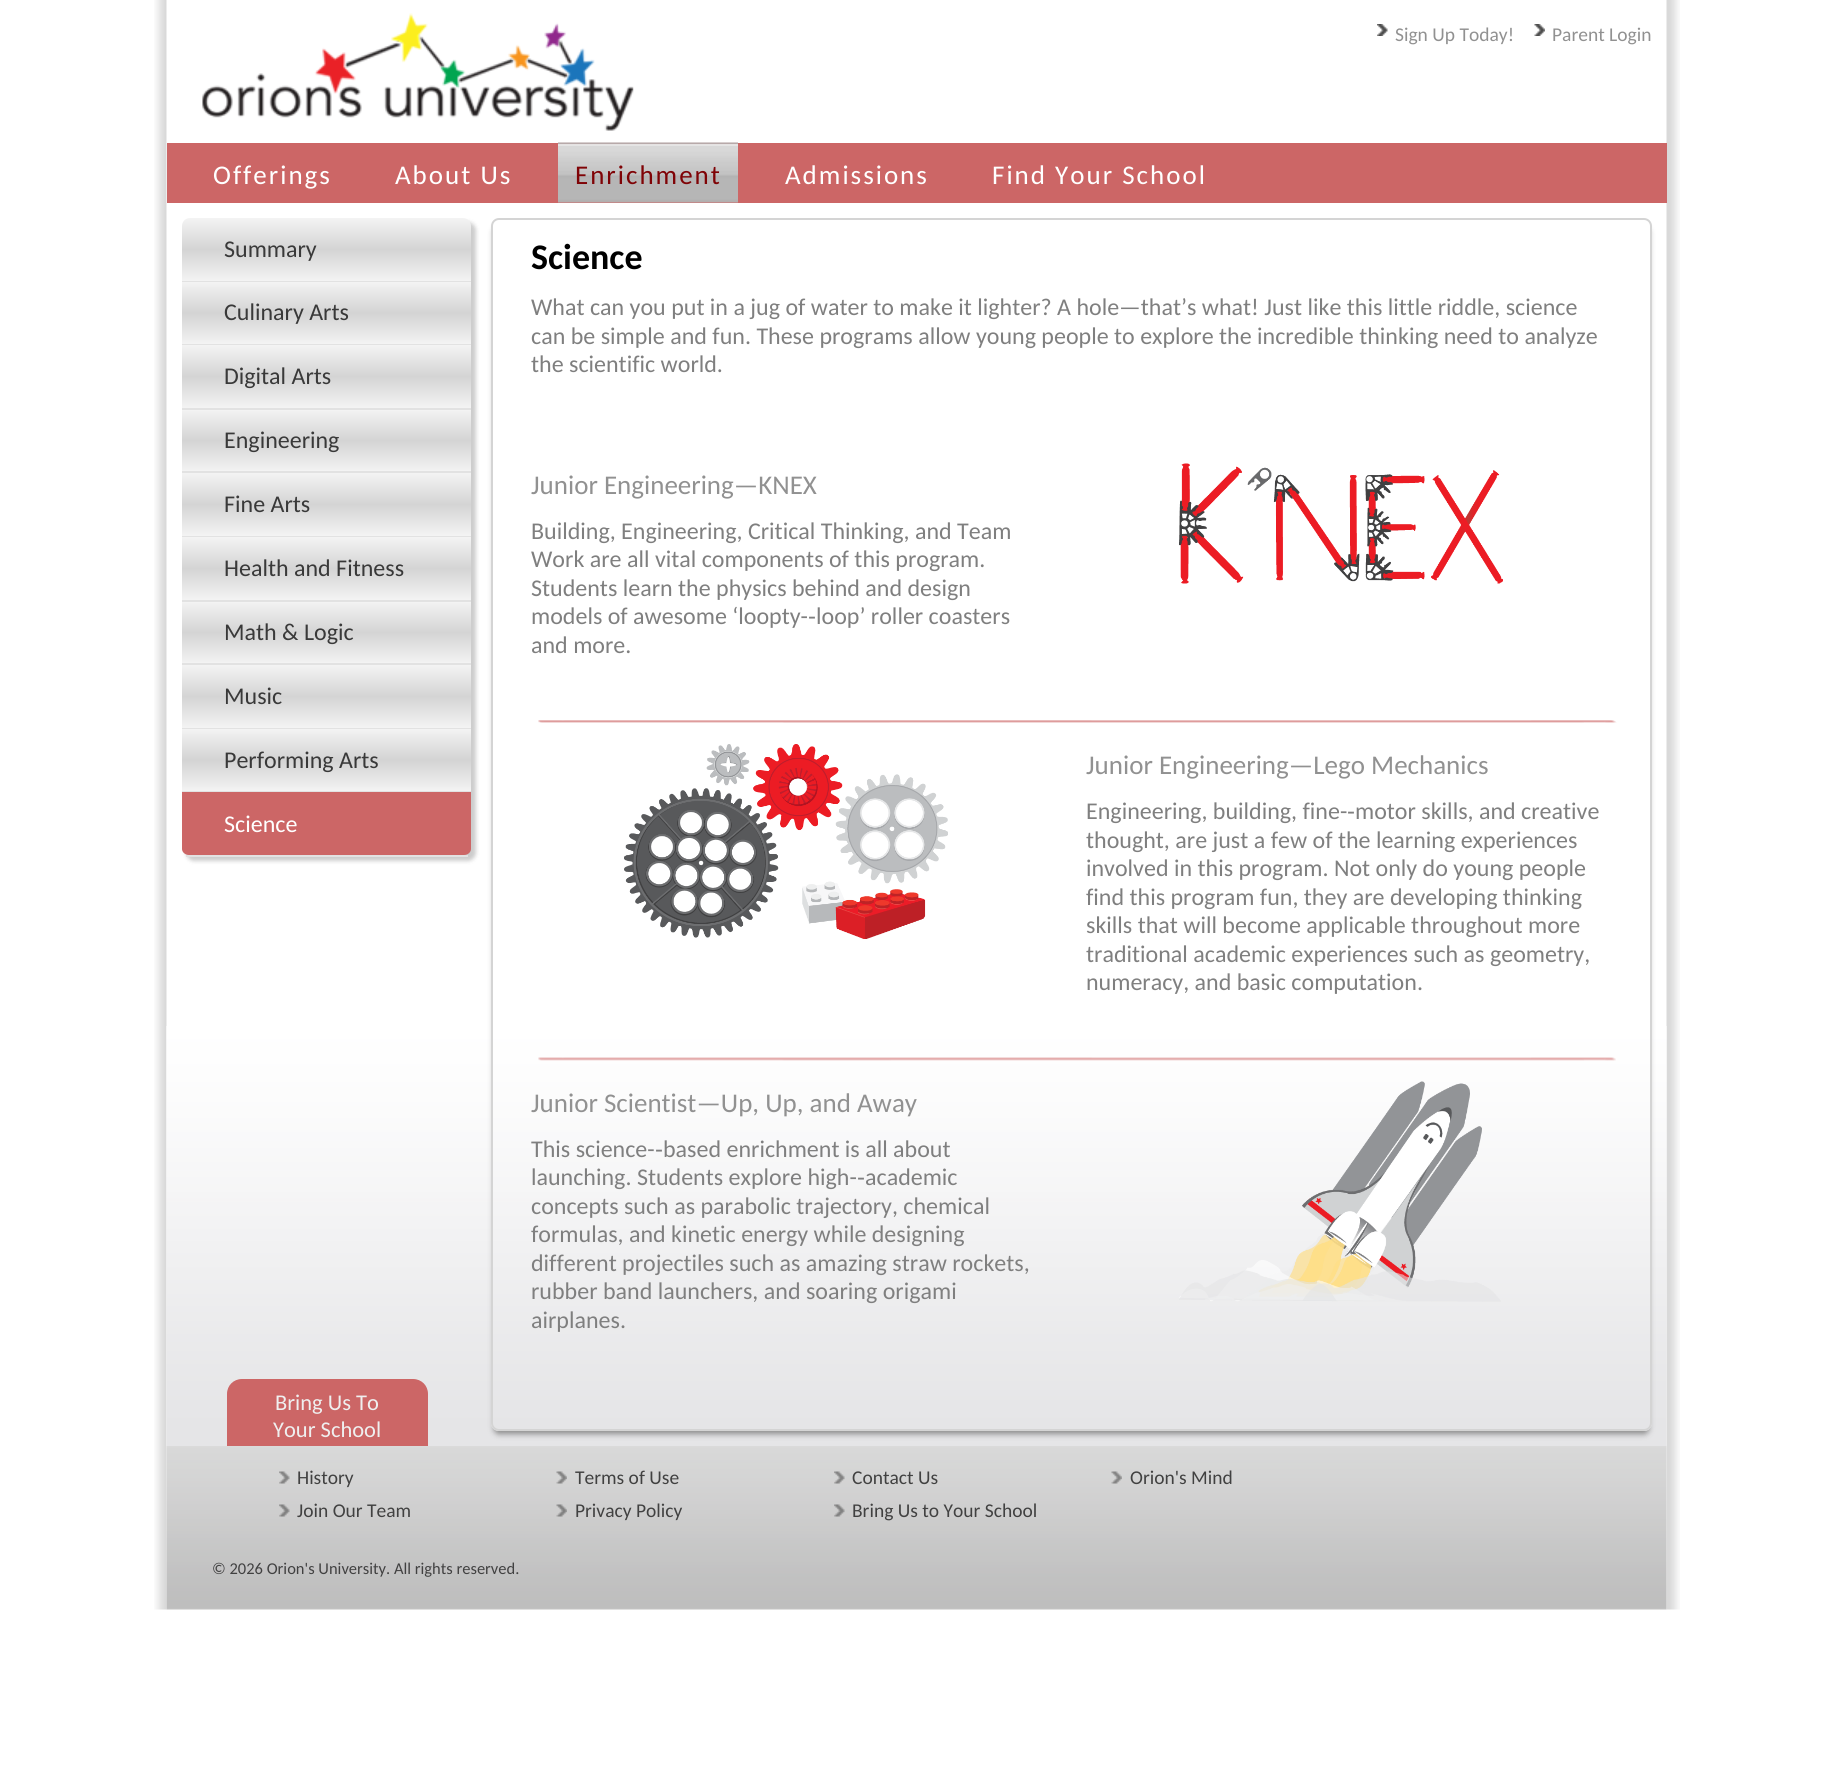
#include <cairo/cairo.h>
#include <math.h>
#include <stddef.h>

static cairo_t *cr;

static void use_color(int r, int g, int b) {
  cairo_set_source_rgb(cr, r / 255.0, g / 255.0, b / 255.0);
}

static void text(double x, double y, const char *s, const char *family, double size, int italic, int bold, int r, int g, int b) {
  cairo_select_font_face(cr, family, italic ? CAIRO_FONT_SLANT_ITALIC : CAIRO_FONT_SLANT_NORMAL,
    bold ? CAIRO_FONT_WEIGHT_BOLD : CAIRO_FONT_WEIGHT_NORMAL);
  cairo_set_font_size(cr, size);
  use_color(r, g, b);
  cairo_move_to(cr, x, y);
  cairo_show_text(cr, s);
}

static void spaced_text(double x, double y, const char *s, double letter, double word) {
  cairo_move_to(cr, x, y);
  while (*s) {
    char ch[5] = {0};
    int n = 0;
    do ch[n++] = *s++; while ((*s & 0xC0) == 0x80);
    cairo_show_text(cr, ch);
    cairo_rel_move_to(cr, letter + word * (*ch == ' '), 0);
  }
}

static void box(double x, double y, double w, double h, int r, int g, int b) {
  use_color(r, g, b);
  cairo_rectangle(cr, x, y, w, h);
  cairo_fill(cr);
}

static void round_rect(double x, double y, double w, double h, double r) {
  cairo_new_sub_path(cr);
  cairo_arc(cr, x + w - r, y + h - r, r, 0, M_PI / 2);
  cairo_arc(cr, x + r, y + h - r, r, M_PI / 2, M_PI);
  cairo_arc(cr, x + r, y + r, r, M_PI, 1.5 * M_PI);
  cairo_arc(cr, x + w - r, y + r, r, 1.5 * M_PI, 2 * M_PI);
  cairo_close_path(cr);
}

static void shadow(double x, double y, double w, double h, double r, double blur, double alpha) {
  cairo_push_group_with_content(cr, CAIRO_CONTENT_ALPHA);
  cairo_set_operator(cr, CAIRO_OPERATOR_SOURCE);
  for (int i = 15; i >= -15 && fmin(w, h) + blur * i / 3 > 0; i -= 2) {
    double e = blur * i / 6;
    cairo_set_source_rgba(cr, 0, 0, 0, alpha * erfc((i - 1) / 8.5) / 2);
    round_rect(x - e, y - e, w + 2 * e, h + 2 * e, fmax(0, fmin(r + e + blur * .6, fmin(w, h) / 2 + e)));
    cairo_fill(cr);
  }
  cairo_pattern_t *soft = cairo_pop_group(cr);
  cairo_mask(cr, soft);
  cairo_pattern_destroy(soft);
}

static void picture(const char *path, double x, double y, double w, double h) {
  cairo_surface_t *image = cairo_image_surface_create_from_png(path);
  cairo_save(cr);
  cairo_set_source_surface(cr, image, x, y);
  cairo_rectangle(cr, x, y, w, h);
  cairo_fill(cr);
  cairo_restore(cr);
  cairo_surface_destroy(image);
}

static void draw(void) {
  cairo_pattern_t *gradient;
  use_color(255, 255, 255);
  cairo_paint(cr);
  picture("img_01.png", 154, 0, 1526, 1610);
  picture("img_02.png", 202, 13, 432, 118);
  picture("img_03.png", 1377, 24, 11, 12);
  picture("img_04.png", 1534, 24, 11, 12);
  box(167, 143, 1500, 60, 204, 102, 102);
  picture("img_05.png", 558, 142, 180, 61);
  picture("img_06.png", 166, 1026, 1501, 420);
  use_color(0, 0, 0);
  shadow(186, 222, 290, 639, 8, 2, 0.2);
  gradient = cairo_pattern_create_linear(326, 218, 326, 281);
  cairo_pattern_add_color_stop_rgba(gradient, 0, 0.953, 0.953, 0.953, 1);
  cairo_pattern_add_color_stop_rgba(gradient, 0.5, 0.831, 0.831, 0.831, 1);
  cairo_pattern_add_color_stop_rgba(gradient, 1, 0.953, 0.953, 0.953, 1);
  cairo_set_source(cr, gradient);
  cairo_pattern_destroy(gradient);
  cairo_new_path(cr);
  cairo_move_to(cr, 190, 218);
  cairo_line_to(cr, 463, 218);
  cairo_curve_to(cr, 467.5, 218, 471, 221.5, 471, 226);
  cairo_line_to(cr, 471, 281);
  cairo_line_to(cr, 182, 281);
  cairo_line_to(cr, 182, 226);
  cairo_curve_to(cr, 182, 221.5, 185.5, 218, 190, 218);
  cairo_close_path(cr);
  cairo_fill(cr);
  box(182, 281, 289, 1, 226, 226, 226);
  gradient = cairo_pattern_create_linear(326, 282, 326, 344);
  cairo_pattern_add_color_stop_rgba(gradient, 0, 0.953, 0.953, 0.953, 1);
  cairo_pattern_add_color_stop_rgba(gradient, 0.5, 0.831, 0.831, 0.831, 1);
  cairo_pattern_add_color_stop_rgba(gradient, 1, 0.953, 0.953, 0.953, 1);
  cairo_set_source(cr, gradient);
  cairo_pattern_destroy(gradient);
  cairo_rectangle(cr, 182, 282, 289, 62);
  cairo_fill(cr);
  box(182, 344, 289, 1, 226, 226, 226);
  gradient = cairo_pattern_create_linear(326, 345, 326, 408);
  cairo_pattern_add_color_stop_rgba(gradient, 0, 0.953, 0.953, 0.953, 1);
  cairo_pattern_add_color_stop_rgba(gradient, 0.5, 0.831, 0.831, 0.831, 1);
  cairo_pattern_add_color_stop_rgba(gradient, 1, 0.953, 0.953, 0.953, 1);
  cairo_set_source(cr, gradient);
  cairo_pattern_destroy(gradient);
  cairo_rectangle(cr, 182, 345, 289, 63);
  cairo_fill(cr);
  box(182, 408, 289, 2, 226, 226, 226);
  gradient = cairo_pattern_create_linear(326, 410, 326, 471);
  cairo_pattern_add_color_stop_rgba(gradient, 0, 0.953, 0.953, 0.953, 1);
  cairo_pattern_add_color_stop_rgba(gradient, 0.5, 0.831, 0.831, 0.831, 1);
  cairo_pattern_add_color_stop_rgba(gradient, 1, 0.953, 0.953, 0.953, 1);
  cairo_set_source(cr, gradient);
  cairo_pattern_destroy(gradient);
  cairo_rectangle(cr, 182, 410, 289, 61);
  cairo_fill(cr);
  box(182, 471, 289, 2, 226, 226, 226);
  gradient = cairo_pattern_create_linear(326, 473, 326, 536);
  cairo_pattern_add_color_stop_rgba(gradient, 0, 0.953, 0.953, 0.953, 1);
  cairo_pattern_add_color_stop_rgba(gradient, 0.5, 0.831, 0.831, 0.831, 1);
  cairo_pattern_add_color_stop_rgba(gradient, 1, 0.953, 0.953, 0.953, 1);
  cairo_set_source(cr, gradient);
  cairo_pattern_destroy(gradient);
  cairo_rectangle(cr, 182, 473, 289, 63);
  cairo_fill(cr);
  box(182, 536, 289, 1, 226, 226, 226);
  gradient = cairo_pattern_create_linear(326, 537, 326, 600);
  cairo_pattern_add_color_stop_rgba(gradient, 0, 0.953, 0.953, 0.953, 1);
  cairo_pattern_add_color_stop_rgba(gradient, 0.5, 0.831, 0.831, 0.831, 1);
  cairo_pattern_add_color_stop_rgba(gradient, 1, 0.953, 0.953, 0.953, 1);
  cairo_set_source(cr, gradient);
  cairo_pattern_destroy(gradient);
  cairo_rectangle(cr, 182, 537, 289, 63);
  cairo_fill(cr);
  box(182, 600, 289, 2, 226, 226, 226);
  gradient = cairo_pattern_create_linear(326, 602, 326, 663);
  cairo_pattern_add_color_stop_rgba(gradient, 0, 0.953, 0.953, 0.953, 1);
  cairo_pattern_add_color_stop_rgba(gradient, 0.5, 0.831, 0.831, 0.831, 1);
  cairo_pattern_add_color_stop_rgba(gradient, 1, 0.953, 0.953, 0.953, 1);
  cairo_set_source(cr, gradient);
  cairo_pattern_destroy(gradient);
  cairo_rectangle(cr, 182, 602, 289, 61);
  cairo_fill(cr);
  box(182, 663, 289, 2, 226, 226, 226);
  gradient = cairo_pattern_create_linear(326, 665, 326, 728);
  cairo_pattern_add_color_stop_rgba(gradient, 0, 0.953, 0.953, 0.953, 1);
  cairo_pattern_add_color_stop_rgba(gradient, 0.5, 0.831, 0.831, 0.831, 1);
  cairo_pattern_add_color_stop_rgba(gradient, 1, 0.953, 0.953, 0.953, 1);
  cairo_set_source(cr, gradient);
  cairo_pattern_destroy(gradient);
  cairo_rectangle(cr, 182, 665, 289, 63);
  cairo_fill(cr);
  box(182, 728, 289, 1, 226, 226, 226);
  gradient = cairo_pattern_create_linear(326, 729, 326, 791);
  cairo_pattern_add_color_stop_rgba(gradient, 0, 0.953, 0.953, 0.953, 1);
  cairo_pattern_add_color_stop_rgba(gradient, 0.5, 0.831, 0.831, 0.831, 1);
  cairo_pattern_add_color_stop_rgba(gradient, 1, 0.953, 0.953, 0.953, 1);
  cairo_set_source(cr, gradient);
  cairo_pattern_destroy(gradient);
  cairo_rectangle(cr, 182, 729, 289, 62);
  cairo_fill(cr);
  box(182, 791, 289, 1, 226, 226, 226);
  use_color(204, 102, 102);
  cairo_new_path(cr);
  cairo_move_to(cr, 182, 792);
  cairo_line_to(cr, 471, 792);
  cairo_line_to(cr, 471, 849);
  cairo_curve_to(cr, 471, 852, 468, 855, 464, 855);
  cairo_line_to(cr, 189, 855);
  cairo_curve_to(cr, 185, 855, 182, 852, 182, 849);
  cairo_close_path(cr);
  cairo_fill(cr);
  box(186, 855, 282, 2, 226, 226, 226);
  use_color(204, 102, 102);
  cairo_new_path(cr);
  cairo_move_to(cr, 242, 1379);
  cairo_line_to(cr, 413, 1379);
  cairo_curve_to(cr, 421.5, 1379, 428, 1385.5, 428, 1394);
  cairo_line_to(cr, 428, 1446);
  cairo_line_to(cr, 227, 1446);
  cairo_line_to(cr, 227, 1394);
  cairo_curve_to(cr, 227, 1385.5, 233.5, 1379, 242, 1379);
  cairo_close_path(cr);
  cairo_fill(cr);
  cairo_save(cr);
  cairo_set_fill_rule(cr, CAIRO_FILL_RULE_EVEN_ODD);
  cairo_new_path(cr);
  cairo_move_to(cr, 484, 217);
  cairo_line_to(cr, 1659, 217);
  cairo_line_to(cr, 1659, 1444);
  cairo_line_to(cr, 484, 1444);
  cairo_close_path(cr);
  cairo_move_to(cr, 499, 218);
  cairo_line_to(cr, 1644, 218);
  cairo_curve_to(cr, 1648.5, 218, 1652, 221.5, 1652, 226);
  cairo_line_to(cr, 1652, 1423);
  cairo_curve_to(cr, 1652, 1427.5, 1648.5, 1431, 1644, 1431);
  cairo_line_to(cr, 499, 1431);
  cairo_curve_to(cr, 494.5, 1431, 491, 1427.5, 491, 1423);
  cairo_line_to(cr, 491, 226);
  cairo_curve_to(cr, 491, 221.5, 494.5, 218, 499, 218);
  cairo_close_path(cr);
  cairo_clip(cr);
  use_color(139, 139, 139);
  shadow(494, 227, 1155, 1207, 5, 3, 1);
  cairo_restore(cr);
  round_rect(492, 219, 1159, 1211, 7);
  use_color(212, 212, 212);
  cairo_stroke(cr);
  picture("img_07.png", 1179, 463, 324, 121);
  picture("img_08.png", 538, 720, 1079, 3);
  picture("img_09.png", 624, 744, 324, 195);
  picture("img_10.png", 538, 1057, 1078, 4);
  picture("img_11.png", 1179, 1081, 322, 221);
  picture("img_12.png", 166, 1446, 1501, 164);
  picture("img_13.png", 279, 1471, 11, 13);
  picture("img_14.png", 279, 1504, 11, 13);
  picture("img_15.png", 556, 1471, 11, 13);
  picture("img_16.png", 556, 1504, 11, 13);
  picture("img_17.png", 834, 1471, 11, 13);
  picture("img_18.png", 834, 1504, 11, 13);
  picture("img_19.png", 1111, 1471, 11, 13);
  text(1395, 41, "Sign Up Today!", "Carlito", 19.5, 0, 0, 145, 145, 145);
  text(1552, 41, "Parent Login", "Carlito", 19.5, 0, 0, 145, 145, 145);
  cairo_set_font_size(cr, 27);
  use_color(255, 255, 255);
  spaced_text(213, 184, "Offerings", 2, 0);
  spaced_text(395, 184, "About Us", 2, 0);
  use_color(127, 3, 6);
  spaced_text(575, 184, "Enrichment", 2, 0);
  use_color(255, 255, 255);
  spaced_text(785, 184, "Admissions", 2, 0);
  spaced_text(992, 184, "Find Your School", 2, 0);
  text(224, 257, "Summary", "Carlito", 24, 0, 0, 57, 57, 57);
  text(224, 320, "Culinary Arts", "Carlito", 24, 0, 0, 57, 57, 57);
  text(224, 384, "Digital Arts", "Carlito", 24, 0, 0, 57, 57, 57);
  text(224, 448, "Engineering", "Carlito", 24, 0, 0, 57, 57, 57);
  text(224, 512, "Fine Arts", "Carlito", 24, 0, 0, 57, 57, 57);
  text(224, 576, "Health and Fitness", "Carlito", 24, 0, 0, 57, 57, 57);
  text(224, 640, "Math & Logic", "Carlito", 24, 0, 0, 57, 57, 57);
  text(224, 704, "Music", "Carlito", 24, 0, 0, 57, 57, 57);
  text(224, 768, "Performing Arts", "Carlito", 24, 0, 0, 57, 57, 57);
  text(224, 832, "Science", "Carlito", 24, 0, 0, 255, 255, 255);
  text(275, 1410, "Bring Us To", "Carlito", 22.5, 0, 0, 239, 239, 239);
  text(273, 1437, "Your School", "Carlito", 22.5, 0, 0, 239, 239, 239);
  text(531, 269, "Science", "Carlito", 36, 0, 1, 0, 0, 0);
  text(531, 315, "What can you put in a jug of water to make it lighter? A hole—that’s what! Just like this little riddle, science", "Carlito", 24, 0, 0, 127, 127, 127);
  text(531, 344, "can be simple and fun. These programs allow young people to explore the incredible thinking need to analyze", "Carlito", 24, 0, 0, 127, 127, 127);
  text(531, 372, "the scientific world.", "Carlito", 24, 0, 0, 127, 127, 127);
  text(531, 494, "Junior Engineering—KNEX", "Carlito", 27, 0, 0, 145, 145, 145);
  text(531, 539, "Building, Engineering, Critical Thinking, and Team", "Carlito", 24, 0, 0, 127, 127, 127);
  text(531, 567, "Work are all vital components of this program.", "Carlito", 24, 0, 0, 127, 127, 127);
  text(531, 596, "Students learn the physics behind and design", "Carlito", 24, 0, 0, 127, 127, 127);
  text(531, 624, "models of awesome ‘loopty-", "Carlito", 24, 0, 0, 127, 127, 127);
  text(808, 624, "‐", "Liberation Sans", 24, 0, 0, 127, 127, 127);
  text(816, 624, "loop’ roller coasters", "Carlito", 24, 0, 0, 127, 127, 127);
  text(531, 653, "and more.", "Carlito", 24, 0, 0, 127, 127, 127);
  text(1086, 774, "Junior Engineering—Lego Mechanics", "Carlito", 27, 0, 0, 145, 145, 145);
  text(1086, 819, "Engineering, building, fine-", "Carlito", 24, 0, 0, 127, 127, 127);
  text(1347, 819, "‐", "Liberation Sans", 24, 0, 0, 127, 127, 127);
  text(1355, 819, "motor skills, and creative", "Carlito", 24, 0, 0, 127, 127, 127);
  text(1086, 848, "thought, are just a few of the learning experiences", "Carlito", 24, 0, 0, 127, 127, 127);
  text(1086, 876, "involved in this program. Not only do young people", "Carlito", 24, 0, 0, 127, 127, 127);
  text(1086, 905, "find this program fun, they are developing thinking", "Carlito", 24, 0, 0, 127, 127, 127);
  text(1086, 933, "skills that will become applicable throughout more", "Carlito", 24, 0, 0, 127, 127, 127);
  text(1086, 962, "traditional academic experiences such as geometry,", "Carlito", 24, 0, 0, 127, 127, 127);
  text(1086, 990, "numeracy, and basic computation.", "Carlito", 24, 0, 0, 127, 127, 127);
  text(531, 1112, "Junior Scientist—Up, Up, and Away", "Carlito", 27, 0, 0, 145, 145, 145);
  text(531, 1157, "This science-", "Carlito", 24, 0, 0, 127, 127, 127);
  text(655, 1157, "‐", "Liberation Sans", 24, 0, 0, 127, 127, 127);
  text(663, 1157, "based enrichment is all about", "Carlito", 24, 0, 0, 127, 127, 127);
  text(531, 1185, "launching. Students explore high-", "Carlito", 24, 0, 0, 127, 127, 127);
  text(857, 1185, "‐", "Liberation Sans", 24, 0, 0, 127, 127, 127);
  text(865, 1185, "academic", "Carlito", 24, 0, 0, 127, 127, 127);
  text(531, 1214, "concepts such as parabolic trajectory, chemical", "Carlito", 24, 0, 0, 127, 127, 127);
  text(531, 1242, "formulas, and kinetic energy while designing", "Carlito", 24, 0, 0, 127, 127, 127);
  text(531, 1271, "different projectiles such as amazing straw rockets,", "Carlito", 24, 0, 0, 127, 127, 127);
  text(531, 1299, "rubber band launchers, and soaring origami", "Carlito", 24, 0, 0, 127, 127, 127);
  text(531, 1328, "airplanes.", "Carlito", 24, 0, 0, 127, 127, 127);
  text(297, 1484, "History", "Carlito", 19.5, 0, 0, 65, 65, 65);
  text(297, 1517, "Join Our Team", "Carlito", 19.5, 0, 0, 65, 65, 65);
  text(575, 1484, "Terms of Use", "Carlito", 19.5, 0, 0, 65, 65, 65);
  text(575, 1517, "Privacy Policy", "Carlito", 19.5, 0, 0, 65, 65, 65);
  text(852, 1484, "Contact Us", "Carlito", 19.5, 0, 0, 65, 65, 65);
  text(852, 1517, "Bring Us to Your School", "Carlito", 19.5, 0, 0, 65, 65, 65);
  text(1130, 1484, "Orion's Mind", "Carlito", 19.5, 0, 0, 65, 65, 65);
  text(212, 1574, "© 2026 Orion's University. All rights reserved.", "Carlito", 16.5, 0, 0, 65, 65, 65);
}

int main(void) {
  cairo_surface_t *surface = cairo_image_surface_create(CAIRO_FORMAT_RGB24, 1832, 1788);
  cr = cairo_create(surface);
  cairo_font_options_t *options = cairo_font_options_create();
  cairo_font_options_set_hint_metrics(options, CAIRO_HINT_METRICS_OFF);
  cairo_font_options_set_hint_style(options, CAIRO_HINT_STYLE_NONE);
  cairo_set_font_options(cr, options);
  cairo_set_miter_limit(cr, 4);
  draw();
  cairo_surface_write_to_png(surface, "out.png");
  cairo_font_options_destroy(options);
  cairo_destroy(cr);
  cairo_surface_destroy(surface);
  return 0;
}
